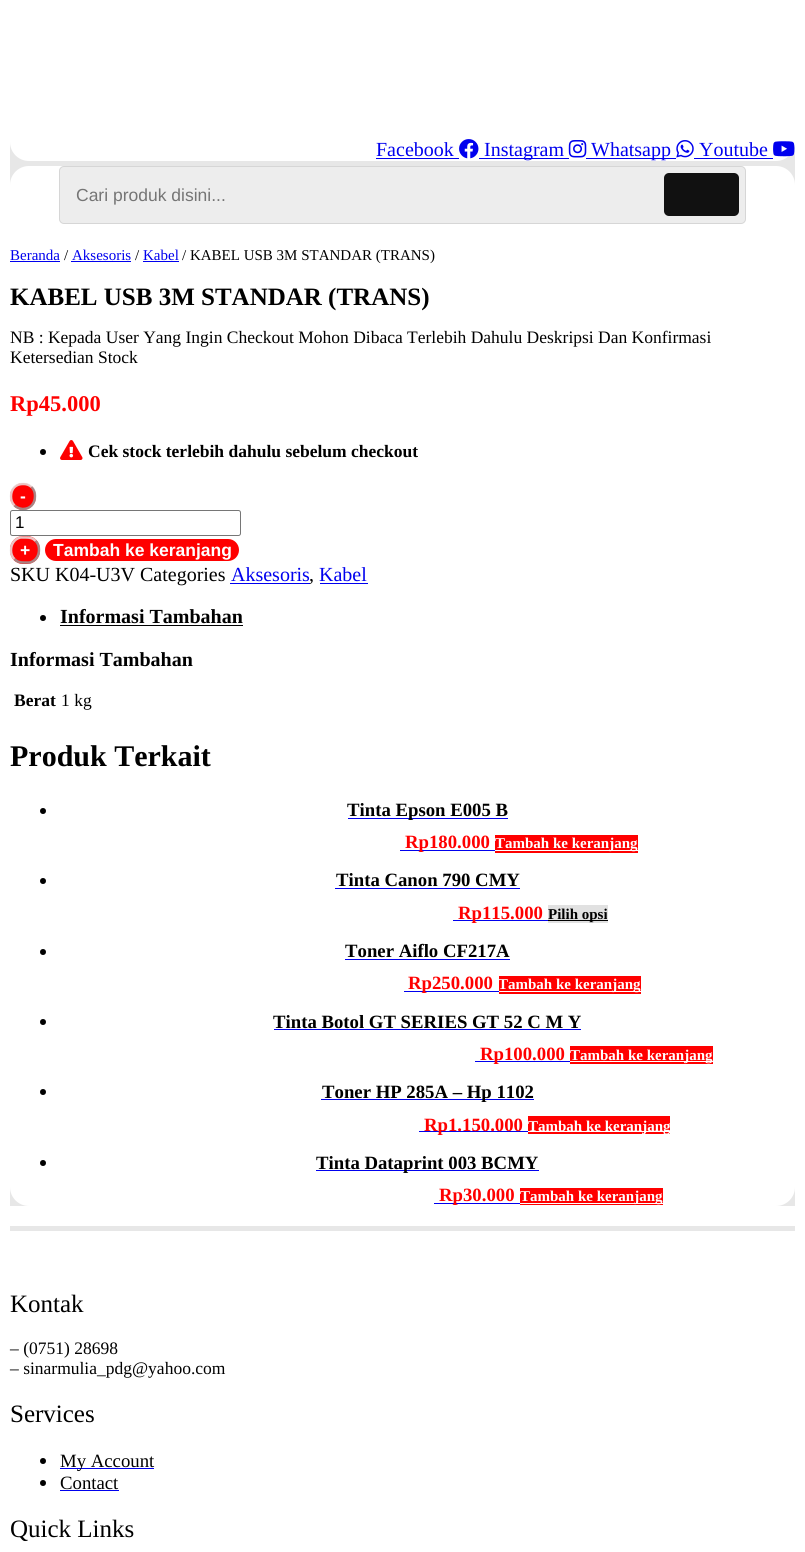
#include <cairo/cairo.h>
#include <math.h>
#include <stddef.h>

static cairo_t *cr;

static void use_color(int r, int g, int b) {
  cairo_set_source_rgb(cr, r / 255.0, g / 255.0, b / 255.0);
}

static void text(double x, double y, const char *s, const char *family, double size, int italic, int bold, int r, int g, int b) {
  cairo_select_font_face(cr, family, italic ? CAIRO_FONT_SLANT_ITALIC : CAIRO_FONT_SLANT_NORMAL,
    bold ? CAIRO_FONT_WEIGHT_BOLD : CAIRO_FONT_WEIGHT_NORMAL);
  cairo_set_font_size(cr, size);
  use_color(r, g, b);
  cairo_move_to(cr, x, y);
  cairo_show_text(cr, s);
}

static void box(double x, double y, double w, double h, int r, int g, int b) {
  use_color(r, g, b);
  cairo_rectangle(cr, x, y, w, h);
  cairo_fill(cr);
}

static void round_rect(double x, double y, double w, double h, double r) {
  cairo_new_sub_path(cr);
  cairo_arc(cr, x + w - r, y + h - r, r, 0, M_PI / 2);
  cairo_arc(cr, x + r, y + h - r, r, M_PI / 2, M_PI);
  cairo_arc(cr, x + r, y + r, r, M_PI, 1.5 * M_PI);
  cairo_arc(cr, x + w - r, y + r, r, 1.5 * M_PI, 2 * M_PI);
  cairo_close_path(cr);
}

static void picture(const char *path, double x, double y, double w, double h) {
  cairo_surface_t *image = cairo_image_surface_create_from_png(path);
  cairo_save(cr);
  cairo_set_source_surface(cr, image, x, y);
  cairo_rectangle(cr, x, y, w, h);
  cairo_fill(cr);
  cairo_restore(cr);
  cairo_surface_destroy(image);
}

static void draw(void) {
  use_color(255, 255, 255);
  cairo_paint(cr);
  box(10, 142, 785, 43, 231, 231, 231);
  use_color(255, 255, 255);
  cairo_new_path(cr);
  cairo_move_to(cr, 10, 10);
  cairo_line_to(cr, 795, 10);
  cairo_line_to(cr, 795, 142);
  cairo_curve_to(cr, 795, 152.5, 786.5, 161, 776, 161);
  cairo_line_to(cr, 29, 161);
  cairo_curve_to(cr, 18.5, 161, 10, 152.5, 10, 142);
  cairo_close_path(cr);
  cairo_fill(cr);
  box(376, 158, 83, 1, 0, 0, 238);
  picture("img_01.png", 459, 139, 20, 20);
  box(479, 158, 90, 1, 0, 0, 238);
  picture("img_02.png", 568, 140, 19, 18);
  box(586, 158, 90, 1, 0, 0, 238);
  picture("img_03.png", 676, 140, 18, 18);
  box(694, 158, 79, 1, 0, 0, 238);
  picture("img_04.png", 773, 141, 22, 16);
  use_color(255, 255, 255);
  cairo_new_path(cr);
  cairo_move_to(cr, 29, 166);
  cairo_line_to(cr, 776, 166);
  cairo_curve_to(cr, 786.5, 166, 795, 174.5, 795, 185);
  cairo_line_to(cr, 795, 224);
  cairo_line_to(cr, 10, 224);
  cairo_line_to(cr, 10, 185);
  cairo_curve_to(cr, 10, 174.5, 18.5, 166, 29, 166);
  cairo_close_path(cr);
  cairo_fill(cr);
  use_color(237, 237, 237);
  round_rect(59.5, 166.5, 686, 57, 4.5);
  cairo_fill_preserve(cr);
  use_color(214, 214, 214);
  cairo_set_line_width(cr, 1);
  cairo_stroke(cr);
  use_color(17, 17, 17);
  round_rect(664, 173, 75, 43, 5);
  cairo_fill(cr);
  box(10, 1187, 785, 19, 231, 231, 231);
  use_color(255, 255, 255);
  cairo_new_path(cr);
  cairo_move_to(cr, 10, 224);
  cairo_line_to(cr, 795, 224);
  cairo_line_to(cr, 795, 1187);
  cairo_curve_to(cr, 795, 1197.5, 786.5, 1206, 776, 1206);
  cairo_line_to(cr, 29, 1206);
  cairo_curve_to(cr, 18.5, 1206, 10, 1197.5, 10, 1187);
  cairo_close_path(cr);
  cairo_fill(cr);
  box(10, 261, 50, 1, 0, 0, 238);
  box(71, 261, 60, 1, 0, 0, 238);
  box(143, 261, 36, 1, 0, 0, 238);
  use_color(0, 0, 0);
  cairo_arc(cr, 43, 452, 3, 0, 2 * M_PI);
  cairo_fill(cr);
  picture("img_05.png", 60, 440, 23, 20);
  use_color(255, 0, 0);
  round_rect(10, 483, 26, 27, 13);
  cairo_fill(cr);
  cairo_new_path(cr);
  cairo_move_to(cr, 31.5, 487);
  cairo_curve_to(cr, 34, 489.5, 35, 492.5, 35, 496);
  cairo_curve_to(cr, 35, 503.5, 30.5, 509, 22.5, 509);
  cairo_curve_to(cr, 19.5, 508.5, 16.5, 507.5, 14.5, 505.5);
  cairo_set_source_rgba(cr, 0.608, 0.608, 0.608, 0.84);
  cairo_set_line_width(cr, 2.5);
  cairo_stroke(cr);
  cairo_new_path(cr);
  cairo_move_to(cr, 14.5, 505.5);
  cairo_curve_to(cr, 12, 503, 11, 500, 11, 496.5);
  cairo_curve_to(cr, 11, 489, 15.5, 483.5, 24, 484);
  cairo_curve_to(cr, 26.5, 484, 29.5, 485, 31.5, 487);
  cairo_set_source_rgba(cr, 0.91, 0.91, 0.91, 0.84);
  cairo_stroke(cr);
  use_color(255, 255, 255);
  round_rect(10.5, 510.5, 230, 25, 2);
  cairo_fill_preserve(cr);
  use_color(118, 118, 118);
  cairo_set_line_width(cr, 1);
  cairo_stroke(cr);
  use_color(255, 0, 0);
  round_rect(10, 536, 30, 28, 13);
  cairo_fill(cr);
  cairo_new_path(cr);
  cairo_move_to(cr, 35.5, 541);
  cairo_curve_to(cr, 38, 543, 39, 546.5, 39, 549.5);
  cairo_curve_to(cr, 39, 555.5, 36, 561, 29.5, 562.5);
  cairo_line_to(cr, 24, 562.5);
  cairo_curve_to(cr, 20.5, 562.5, 17, 562, 14.5, 559);
  cairo_set_source_rgba(cr, 0.608, 0.608, 0.608, 0.84);
  cairo_set_line_width(cr, 2.5);
  cairo_stroke(cr);
  cairo_new_path(cr);
  cairo_move_to(cr, 14.5, 559);
  cairo_curve_to(cr, 12, 557, 11, 553.5, 11, 550.5);
  cairo_curve_to(cr, 11, 544.5, 14, 539, 20.5, 537.5);
  cairo_line_to(cr, 26, 537.5);
  cairo_curve_to(cr, 29.5, 537.5, 33, 538, 35.5, 541);
  cairo_set_source_rgba(cr, 0.91, 0.91, 0.91, 0.84);
  cairo_stroke(cr);
  use_color(255, 0, 0);
  round_rect(45, 539, 194, 22, 11);
  cairo_fill(cr);
  box(230, 583, 80, 1, 0, 0, 238);
  box(320, 583, 48, 1, 0, 0, 238);
  use_color(0, 0, 0);
  cairo_arc(cr, 43, 618, 3, 0, 2 * M_PI);
  cairo_fill(cr);
  box(60, 625, 183, 1, 0, 0, 0);
  cairo_arc(cr, 43, 811, 3, 0, 2 * M_PI);
  cairo_fill(cr);
  box(348, 818, 160, 1, 0, 0, 238);
  box(400, 850, 95, 1, 0, 0, 238);
  box(495, 835, 143, 18, 255, 0, 0);
  box(495, 850, 143, 1, 255, 255, 255);
  use_color(0, 0, 0);
  cairo_arc(cr, 43, 881, 3, 0, 2 * M_PI);
  cairo_fill(cr);
  box(335, 888, 185, 1, 0, 0, 238);
  box(453, 920, 95, 1, 0, 0, 238);
  box(548, 905, 60, 18, 225, 225, 225);
  box(548, 920, 60, 1, 0, 0, 0);
  cairo_arc(cr, 43, 952, 3, 0, 2 * M_PI);
  cairo_fill(cr);
  box(345, 959, 165, 1, 0, 0, 238);
  box(404, 991, 95, 1, 0, 0, 238);
  box(499, 976, 142, 18, 255, 0, 0);
  box(499, 991, 142, 1, 255, 255, 255);
  use_color(0, 0, 0);
  cairo_arc(cr, 43, 1022, 3, 0, 2 * M_PI);
  cairo_fill(cr);
  box(274, 1029, 307, 1, 0, 0, 238);
  box(475, 1061, 95, 1, 0, 0, 238);
  box(570, 1046, 143, 18, 255, 0, 0);
  box(570, 1061, 143, 1, 255, 255, 255);
  use_color(0, 0, 0);
  cairo_arc(cr, 43, 1092, 3, 0, 2 * M_PI);
  cairo_fill(cr);
  box(321, 1099, 213, 1, 0, 0, 238);
  box(419, 1131, 109, 1, 0, 0, 238);
  box(528, 1116, 142, 18, 255, 0, 0);
  box(528, 1131, 142, 1, 255, 255, 255);
  use_color(0, 0, 0);
  cairo_arc(cr, 43, 1163, 3, 0, 2 * M_PI);
  cairo_fill(cr);
  box(316, 1170, 223, 1, 0, 0, 238);
  box(434, 1203, 86, 1, 0, 0, 238);
  box(520, 1188, 143, 17, 255, 0, 0);
  box(520, 1203, 143, 1, 255, 255, 255);
  box(10, 1226, 785, 5, 231, 231, 231);
  use_color(0, 0, 0);
  cairo_arc(cr, 43, 1461, 3, 0, 2 * M_PI);
  cairo_fill(cr);
  box(60, 1468, 94, 1, 0, 0, 238);
  use_color(0, 0, 0);
  cairo_arc(cr, 43, 1483, 3, 0, 2 * M_PI);
  cairo_fill(cr);
  box(60, 1490, 59, 1, 0, 0, 238);
  text(376, 156, "Facebook", "Liberation Serif", 20, 0, 0, 0, 0, 238);
  text(484, 156, "Instagram", "Liberation Serif", 20, 0, 0, 0, 0, 238);
  text(591, 156, "Whatsapp", "Liberation Serif", 20, 0, 0, 0, 0, 238);
  text(699, 156, "Youtube", "Liberation Serif", 20, 0, 0, 0, 0, 238);
  text(76, 201, "Cari produk disini...", "Liberation Sans", 17.5, 0, 0, 117, 117, 117);
  text(10, 260, "Beranda", "Liberation Serif", 15, 0, 0, 0, 0, 238);
  text(64, 260, "/", "Liberation Serif", 15, 0, 0, 0, 0, 0);
  text(72, 260, "Aksesoris", "Liberation Serif", 15, 0, 0, 0, 0, 238);
  text(135, 260, "/", "Liberation Serif", 15, 0, 0, 0, 0, 0);
  text(143, 260, "Kabel", "Liberation Serif", 15, 0, 0, 0, 0, 238);
  text(182, 260, "/ KABEL USB 3M STANDAR (TRANS)", "Liberation Serif", 15, 0, 0, 0, 0, 0);
  text(10, 305, "KABEL USB 3M STANDAR (TRANS)", "Liberation Serif", 25, 0, 1, 0, 0, 0);
  text(10, 343, "NB : Kepada User Yang Ingin Checkout Mohon Dibaca Terlebih Dahulu Deskripsi Dan Konfirmasi", "Liberation Serif", 17.5, 0, 0, 0, 0, 0);
  text(10, 363, "Ketersedian Stock", "Liberation Serif", 17.5, 0, 0, 0, 0, 0);
  text(10, 411, "Rp45.000", "Liberation Serif", 22.5, 0, 1, 255, 0, 0);
  text(88, 457, "Cek stock terlebih dahulu sebelum checkout", "Liberation Serif", 17.5, 0, 1, 0, 0, 0);
  text(20, 502, "-", "Liberation Sans", 17.5, 0, 1, 255, 255, 255);
  text(15, 528, "1", "Liberation Sans", 17, 0, 0, 0, 0, 0);
  text(20, 556, "+", "Liberation Sans", 17.5, 0, 1, 255, 255, 255);
  text(53, 556, "Tambah ke keranjang", "Liberation Sans", 17.5, 0, 1, 255, 255, 255);
  text(10, 581, "SKU K04-U3V Categories", "Liberation Serif", 20, 0, 0, 0, 0, 0);
  text(231, 581, "Aksesoris", "Liberation Serif", 20, 0, 0, 0, 0, 238);
  text(309, 581, ",", "Liberation Serif", 20, 0, 0, 0, 0, 0);
  text(319, 581, "Kabel", "Liberation Serif", 20, 0, 0, 0, 0, 238);
  text(60, 623, "Informasi Tambahan", "Liberation Serif", 20, 0, 1, 0, 0, 0);
  text(10, 666, "Informasi Tambahan", "Liberation Serif", 20, 0, 1, 0, 0, 0);
  text(14, 706, "Berat", "Liberation Serif", 17.5, 0, 1, 0, 0, 0);
  text(61, 706, "1 kg", "Liberation Serif", 17.5, 0, 0, 0, 0, 0);
  text(10, 766, "Produk Terkait", "Liberation Serif", 30, 0, 1, 0, 0, 0);
  text(347, 816, "Tinta Epson E005 B", "Liberation Serif", 18.75, 0, 1, 0, 0, 0);
  text(405, 848, "Rp180.000", "Liberation Serif", 18.75, 0, 1, 255, 0, 0);
  text(495, 848, "Tambah ke keranjang", "Liberation Serif", 15, 0, 1, 255, 255, 255);
  text(336, 886, "Tinta Canon 790 CMY", "Liberation Serif", 18.75, 0, 1, 0, 0, 0);
  text(458, 919, "Rp115.000", "Liberation Serif", 18.75, 0, 1, 255, 0, 0);
  text(548, 919, "Pilih opsi", "Liberation Serif", 15, 0, 1, 0, 0, 0);
  text(345, 957, "Toner Aiflo CF217A", "Liberation Serif", 18.75, 0, 1, 0, 0, 0);
  text(408, 989, "Rp250.000", "Liberation Serif", 18.75, 0, 1, 255, 0, 0);
  text(498, 989, "Tambah ke keranjang", "Liberation Serif", 15, 0, 1, 255, 255, 255);
  text(273, 1028, "Tinta Botol GT SERIES GT 52 C M Y", "Liberation Serif", 18.75, 0, 1, 0, 0, 0);
  text(480, 1060, "Rp100.000", "Liberation Serif", 18.75, 0, 1, 255, 0, 0);
  text(570, 1060, "Tambah ke keranjang", "Liberation Serif", 15, 0, 1, 255, 255, 255);
  text(322, 1098, "Toner HP 285A – Hp 1102", "Liberation Serif", 18.75, 0, 1, 0, 0, 0);
  text(424, 1131, "Rp1.150.000", "Liberation Serif", 18.75, 0, 1, 255, 0, 0);
  text(528, 1131, "Tambah ke keranjang", "Liberation Serif", 15, 0, 1, 255, 255, 255);
  text(316, 1169, "Tinta Dataprint 003 BCMY", "Liberation Serif", 18.75, 0, 1, 0, 0, 0);
  text(439, 1201, "Rp30.000", "Liberation Serif", 18.75, 0, 1, 255, 0, 0);
  text(520, 1201, "Tambah ke keranjang", "Liberation Serif", 15, 0, 1, 255, 255, 255);
  text(10, 1312, "Kontak", "Liberation Serif", 25, 0, 0, 0, 0, 0);
  text(10, 1354, "– (0751) 28698", "Liberation Serif", 17.5, 0, 0, 0, 0, 0);
  text(10, 1374, "– sinarmulia_pdg@yahoo.com", "Liberation Serif", 17.5, 0, 0, 0, 0, 0);
  text(10, 1422, "Services", "Liberation Serif", 25, 0, 0, 0, 0, 0);
  text(60, 1467, "My Account", "Liberation Serif", 18.75, 0, 0, 0, 0, 0);
  text(60, 1489, "Contact", "Liberation Serif", 18.75, 0, 0, 0, 0, 0);
  text(10, 1537, "Quick Links", "Liberation Serif", 25, 0, 0, 0, 0, 0);
}

int main(void) {
  cairo_surface_t *surface = cairo_image_surface_create(CAIRO_FORMAT_RGB24, 805, 1552);
  cr = cairo_create(surface);
  cairo_font_options_t *options = cairo_font_options_create();
  cairo_font_options_set_hint_metrics(options, CAIRO_HINT_METRICS_OFF);
  cairo_font_options_set_hint_style(options, CAIRO_HINT_STYLE_NONE);
  cairo_set_font_options(cr, options);
  cairo_set_miter_limit(cr, 4);
  draw();
  cairo_surface_write_to_png(surface, "out.png");
  cairo_font_options_destroy(options);
  cairo_destroy(cr);
  cairo_surface_destroy(surface);
  return 0;
}
